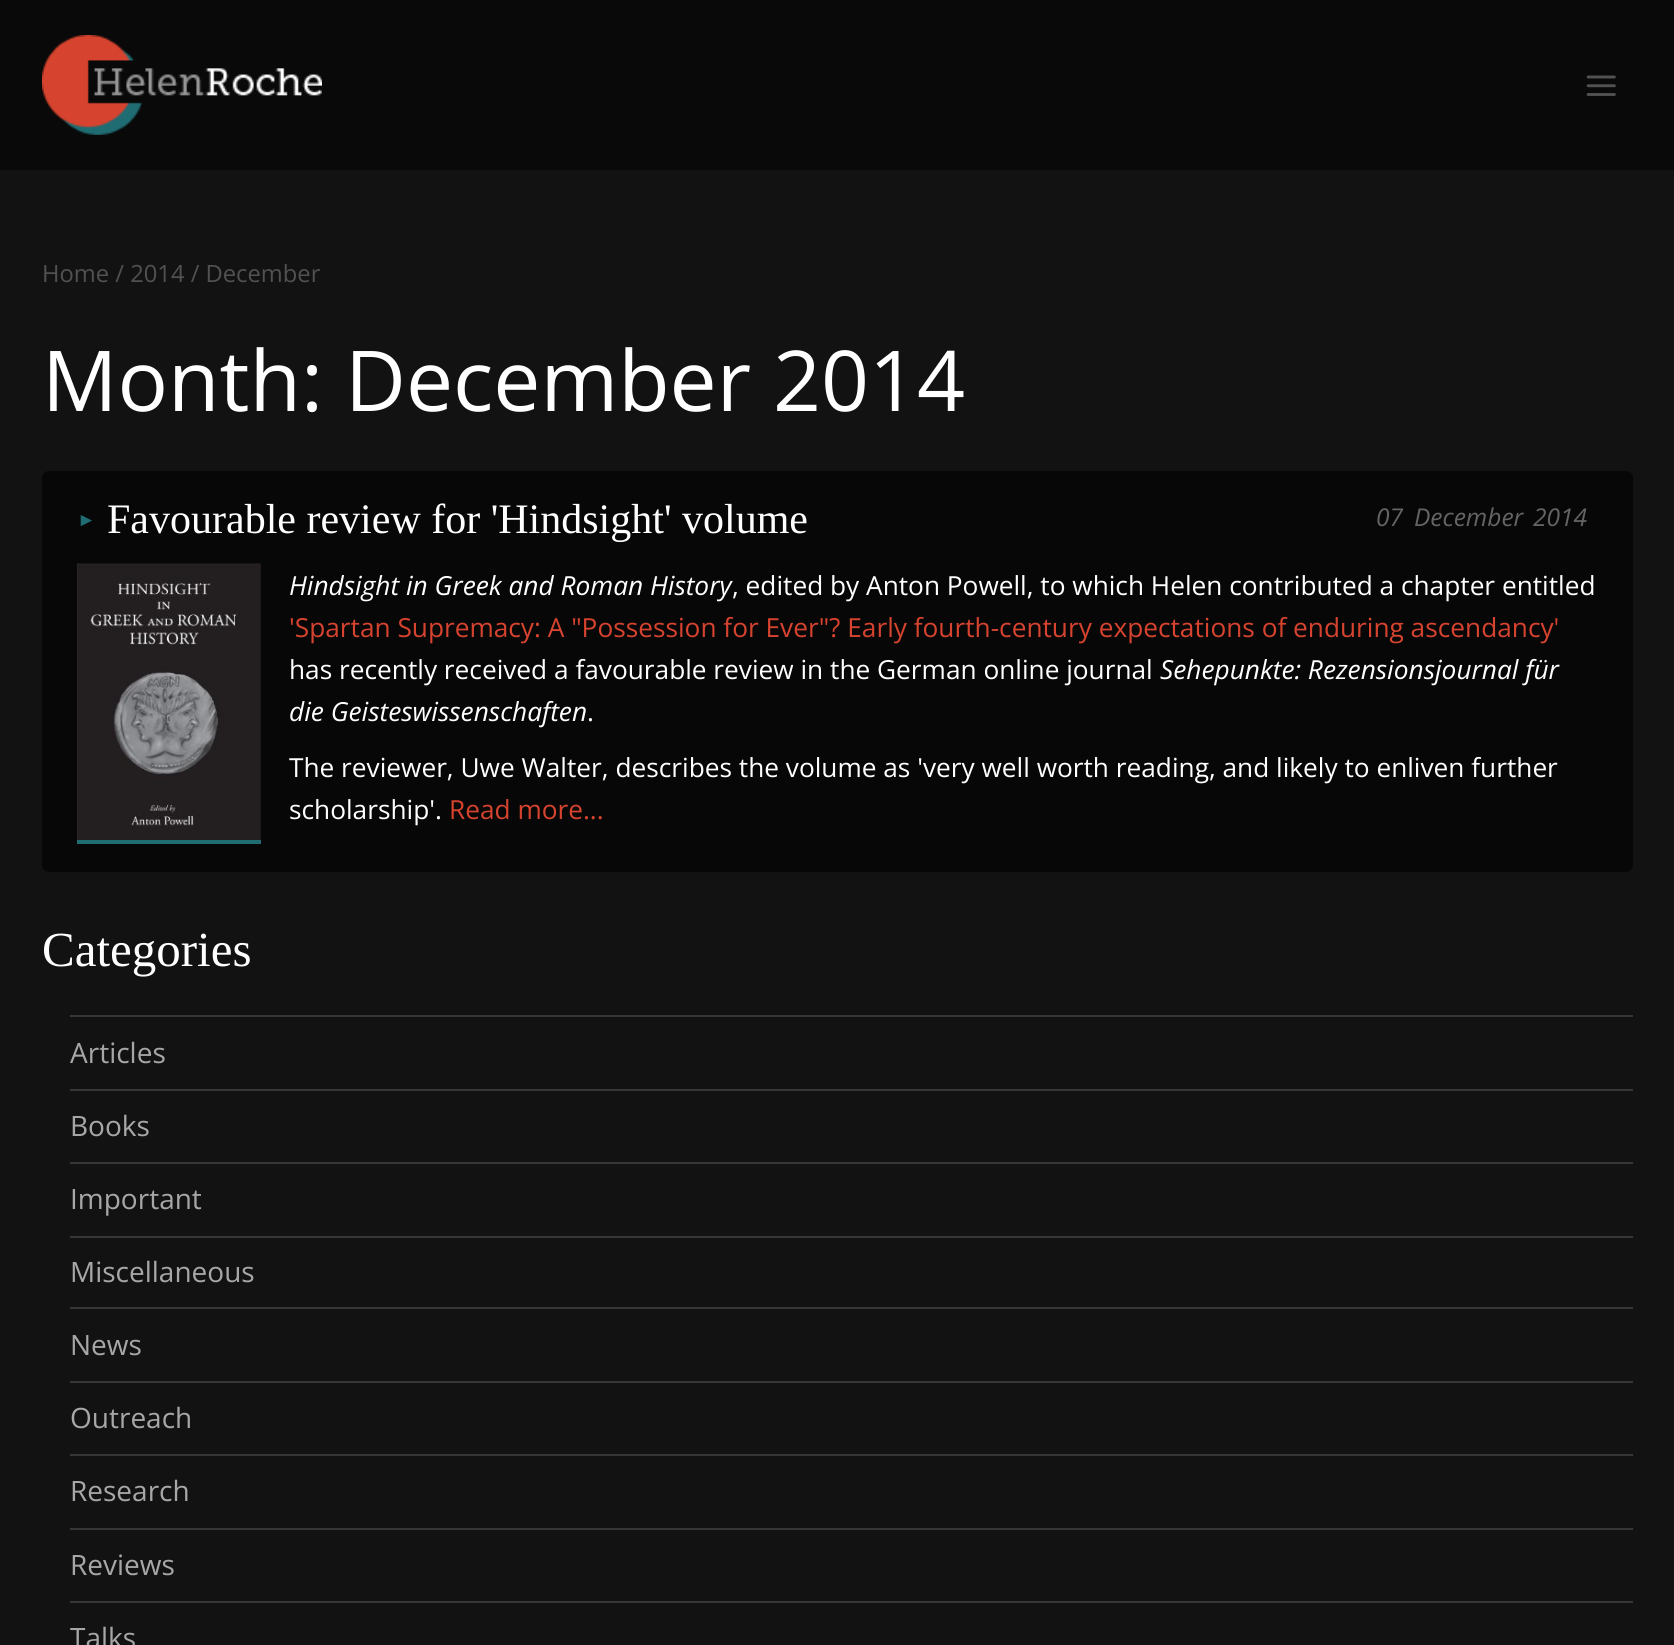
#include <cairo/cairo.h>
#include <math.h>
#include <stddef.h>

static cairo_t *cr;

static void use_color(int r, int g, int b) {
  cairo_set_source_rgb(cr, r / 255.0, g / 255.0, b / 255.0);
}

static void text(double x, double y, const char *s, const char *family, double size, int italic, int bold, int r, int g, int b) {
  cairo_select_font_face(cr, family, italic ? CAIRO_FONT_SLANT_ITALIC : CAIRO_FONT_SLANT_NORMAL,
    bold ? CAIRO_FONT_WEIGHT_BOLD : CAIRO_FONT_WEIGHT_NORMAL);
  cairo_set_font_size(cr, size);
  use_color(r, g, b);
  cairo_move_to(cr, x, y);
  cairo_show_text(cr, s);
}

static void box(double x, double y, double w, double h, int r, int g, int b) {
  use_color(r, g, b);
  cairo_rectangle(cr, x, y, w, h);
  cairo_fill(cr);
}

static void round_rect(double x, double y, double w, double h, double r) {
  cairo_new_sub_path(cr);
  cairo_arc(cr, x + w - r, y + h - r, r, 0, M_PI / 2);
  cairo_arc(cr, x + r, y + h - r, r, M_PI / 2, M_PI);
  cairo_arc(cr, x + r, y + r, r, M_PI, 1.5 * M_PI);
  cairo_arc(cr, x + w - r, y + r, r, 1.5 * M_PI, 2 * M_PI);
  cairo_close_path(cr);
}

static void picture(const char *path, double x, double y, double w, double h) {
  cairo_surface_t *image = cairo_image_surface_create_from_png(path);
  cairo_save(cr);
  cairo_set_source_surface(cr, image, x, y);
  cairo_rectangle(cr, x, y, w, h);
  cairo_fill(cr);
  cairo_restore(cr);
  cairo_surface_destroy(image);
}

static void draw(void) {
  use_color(18, 18, 18);
  cairo_paint(cr);
  box(0, 0, 1674, 170, 9, 9, 9);
  picture("img_01.png", 42, 35, 280, 100);
  picture("img_02.png", 1586, 75, 30, 21);
  use_color(7, 7, 7);
  round_rect(42, 471, 1591, 401, 7);
  cairo_fill(cr);
  box(77, 840, 184, 4, 32, 108, 115);
  picture("img_03.png", 77, 563, 184, 277);
  box(70, 1015, 1563, 2, 54, 54, 54);
  box(70, 1089, 1563, 2, 54, 54, 54);
  box(70, 1162, 1563, 2, 54, 54, 54);
  box(70, 1236, 1563, 2, 54, 54, 54);
  box(70, 1307, 1563, 2, 54, 54, 54);
  box(70, 1381, 1563, 2, 54, 54, 54);
  box(70, 1454, 1563, 2, 54, 54, 54);
  box(70, 1528, 1563, 2, 54, 54, 54);
  box(70, 1601, 1563, 2, 54, 54, 54);
  text(42, 282, "Home / 2014 / December", "Open Sans", 23.75, 0, 0, 81, 81, 81);
  text(42, 411, "Month: December 2014", "Open Sans", 84, 0, 0, 255, 255, 255);
  text(77, 526, "►", "Liberation Serif", 19, 0, 0, 32, 108, 115);
  text(107, 533, "Favourable review for 'Hindsight' volume", "Liberation Serif", 42, 0, 0, 255, 255, 255);
  text(1376, 526, "07", "Open Sans", 24.5, 1, 0, 100, 100, 100);
  text(1414, 526, "December", "Open Sans", 24.5, 1, 0, 100, 100, 100);
  text(1533, 526, "2014", "Open Sans", 24.5, 1, 0, 100, 100, 100);
  text(289, 595, "Hindsight in Greek and Roman History", "Open Sans", 26.25, 1, 0, 255, 255, 255);
  text(732, 595, ", edited by Anton Powell, to which Helen contributed a chapter entitled", "Open Sans", 26.25, 0, 0, 255, 255, 255);
  text(289, 637, "'Spartan Supremacy: A \"Possession for Ever\"? Early fourth-century expectations of enduring ascendancy'", "Open Sans", 26.25, 0, 0, 214, 67, 46);
  text(289, 679, "has recently received a favourable review in the German online journal", "Open Sans", 26.25, 0, 0, 255, 255, 255);
  text(1160, 679, "Sehepunkte: Rezensionsjournal für", "Open Sans", 26.25, 1, 0, 255, 255, 255);
  text(289, 721, "die Geisteswissenschaften", "Open Sans", 26.25, 1, 0, 255, 255, 255);
  text(587, 721, ".", "Open Sans", 26.25, 0, 0, 255, 255, 255);
  text(289, 777, "The reviewer, Uwe Walter, describes the volume as 'very well worth reading, and likely to enliven further", "Open Sans", 26.25, 0, 0, 255, 255, 255);
  text(289, 819, "scholarship'.", "Open Sans", 26.25, 0, 0, 255, 255, 255);
  text(449, 819, "Read more...", "Open Sans", 26.25, 0, 0, 214, 67, 46);
  text(42, 966, "Categories", "Liberation Serif", 49, 0, 0, 255, 255, 255);
  text(70, 1063, "Articles", "Open Sans", 28, 0, 0, 167, 167, 167);
  text(70, 1136, "Books", "Open Sans", 28, 0, 0, 167, 167, 167);
  text(70, 1209, "Important", "Open Sans", 28, 0, 0, 167, 167, 167);
  text(70, 1282, "Miscellaneous", "Open Sans", 28, 0, 0, 167, 167, 167);
  text(70, 1355, "News", "Open Sans", 28, 0, 0, 167, 167, 167);
  text(70, 1428, "Outreach", "Open Sans", 28, 0, 0, 167, 167, 167);
  text(70, 1501, "Research", "Open Sans", 28, 0, 0, 167, 167, 167);
  text(70, 1575, "Reviews", "Open Sans", 28, 0, 0, 167, 167, 167);
  text(70, 1648, "Talks", "Open Sans", 28, 0, 0, 167, 167, 167);
}

int main(void) {
  cairo_surface_t *surface = cairo_image_surface_create(CAIRO_FORMAT_RGB24, 1674, 1645);
  cr = cairo_create(surface);
  cairo_font_options_t *options = cairo_font_options_create();
  cairo_font_options_set_hint_metrics(options, CAIRO_HINT_METRICS_OFF);
  cairo_font_options_set_hint_style(options, CAIRO_HINT_STYLE_NONE);
  cairo_set_font_options(cr, options);
  cairo_set_miter_limit(cr, 4);
  draw();
  cairo_surface_write_to_png(surface, "out.png");
  cairo_font_options_destroy(options);
  cairo_destroy(cr);
  cairo_surface_destroy(surface);
  return 0;
}
